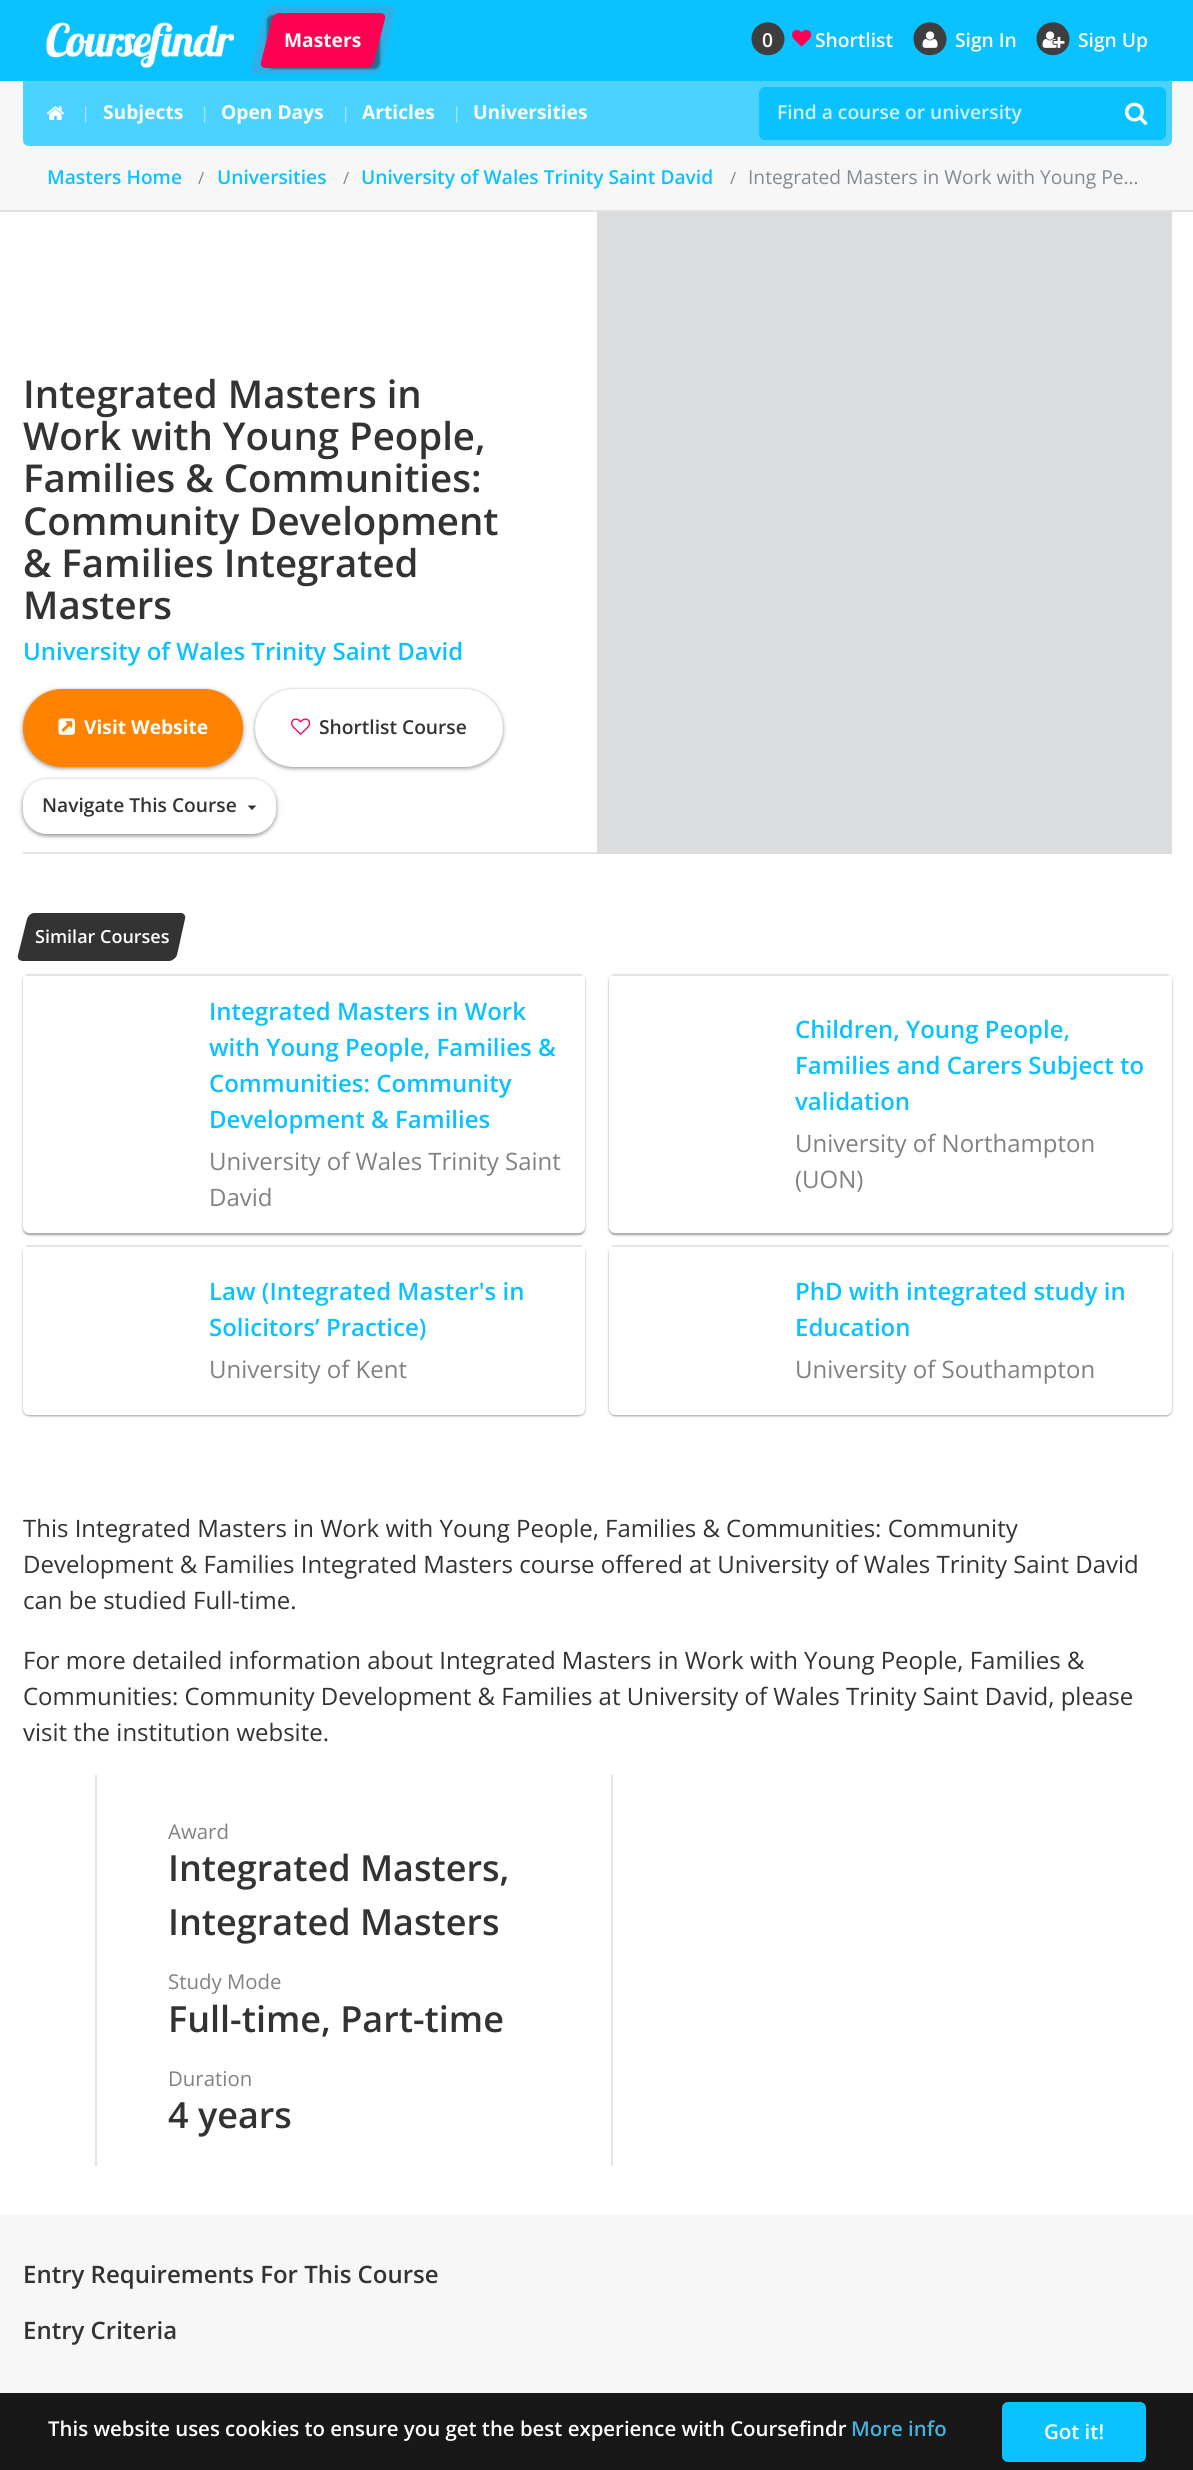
#include <cairo/cairo.h>
#include <math.h>
#include <stddef.h>

static cairo_t *cr;

static void use_color(int r, int g, int b) {
  cairo_set_source_rgb(cr, r / 255.0, g / 255.0, b / 255.0);
}

static void text(double x, double y, const char *s, const char *family, double size, int italic, int bold, int r, int g, int b) {
  cairo_select_font_face(cr, family, italic ? CAIRO_FONT_SLANT_ITALIC : CAIRO_FONT_SLANT_NORMAL,
    bold ? CAIRO_FONT_WEIGHT_BOLD : CAIRO_FONT_WEIGHT_NORMAL);
  cairo_set_font_size(cr, size);
  use_color(r, g, b);
  cairo_move_to(cr, x, y);
  cairo_show_text(cr, s);
}

static void box(double x, double y, double w, double h, int r, int g, int b) {
  use_color(r, g, b);
  cairo_rectangle(cr, x, y, w, h);
  cairo_fill(cr);
}

static void round_rect(double x, double y, double w, double h, double r) {
  cairo_new_sub_path(cr);
  cairo_arc(cr, x + w - r, y + h - r, r, 0, M_PI / 2);
  cairo_arc(cr, x + r, y + h - r, r, M_PI / 2, M_PI);
  cairo_arc(cr, x + r, y + r, r, M_PI, 1.5 * M_PI);
  cairo_arc(cr, x + w - r, y + r, r, 1.5 * M_PI, 2 * M_PI);
  cairo_close_path(cr);
}

static void shadow(double x, double y, double w, double h, double r, double blur, double alpha) {
  cairo_push_group_with_content(cr, CAIRO_CONTENT_ALPHA);
  cairo_set_operator(cr, CAIRO_OPERATOR_SOURCE);
  for (int i = 15; i >= -15 && fmin(w, h) + blur * i / 3 > 0; i -= 2) {
    double e = blur * i / 6;
    cairo_set_source_rgba(cr, 0, 0, 0, alpha * erfc((i - 1) / 8.5) / 2);
    round_rect(x - e, y - e, w + 2 * e, h + 2 * e, fmax(0, fmin(r + e + blur * .6, fmin(w, h) / 2 + e)));
    cairo_fill(cr);
  }
  cairo_pattern_t *soft = cairo_pop_group(cr);
  cairo_mask(cr, soft);
  cairo_pattern_destroy(soft);
}

static void picture(const char *path, double x, double y, double w, double h) {
  cairo_surface_t *image = cairo_image_surface_create_from_png(path);
  cairo_save(cr);
  cairo_set_source_surface(cr, image, x, y);
  cairo_rectangle(cr, x, y, w, h);
  cairo_fill(cr);
  cairo_restore(cr);
  cairo_surface_destroy(image);
}

static void draw(void) {
  use_color(255, 255, 255);
  cairo_paint(cr);
  box(0, 0, 1193, 81, 9, 194, 255);
  picture("img_01.png", 46, 22, 188, 46);
  use_color(44, 176, 232);
  cairo_new_path(cr);
  cairo_move_to(cr, 273, 6);
  cairo_line_to(cr, 390, 6);
  cairo_curve_to(cr, 394, 6, 396, 9, 395, 12);
  cairo_line_to(cr, 381, 68);
  cairo_curve_to(cr, 380, 72, 377, 74, 373, 74);
  cairo_line_to(cr, 255, 74);
  cairo_curve_to(cr, 252, 74, 250, 72, 251, 68);
  cairo_line_to(cr, 265, 12);
  cairo_curve_to(cr, 266, 9, 269, 6, 273, 6);
  cairo_close_path(cr);
  cairo_fill(cr);
  use_color(0, 0, 0);
  shadow(267, 15, 113, 54, 6, 1, 0.25);
  shadow(267, 15, 113, 54, 6, 1, 0.15);
  use_color(255, 0, 82);
  cairo_new_path(cr);
  cairo_move_to(cr, 279, 13);
  cairo_line_to(cr, 380, 13);
  cairo_curve_to(cr, 384, 13, 386, 16, 385, 19);
  cairo_line_to(cr, 374, 62);
  cairo_curve_to(cr, 373, 65, 370, 68, 367, 68);
  cairo_line_to(cr, 266, 68);
  cairo_curve_to(cr, 262, 68, 260, 65, 261, 62);
  cairo_line_to(cr, 272, 19);
  cairo_curve_to(cr, 273, 16, 276, 13, 279, 13);
  cairo_close_path(cr);
  cairo_fill(cr);
  use_color(62, 62, 62);
  cairo_new_path(cr);
  cairo_move_to(cr, 782, 30.5);
  cairo_curve_to(cr, 784, 33.5, 784.5, 36.5, 784.5, 40);
  cairo_curve_to(cr, 783.5, 56, 762, 61, 753.5, 47);
  cairo_curve_to(cr, 752, 44, 751.5, 41, 751.5, 37.5);
  cairo_curve_to(cr, 752.5, 21.5, 774, 16.5, 782, 30.5);
  cairo_close_path(cr);
  cairo_fill(cr);
  picture("img_02.png", 792, 29, 20, 18);
  cairo_new_path(cr);
  cairo_move_to(cr, 944, 30.5);
  cairo_curve_to(cr, 946, 33.5, 946.5, 36.5, 946.5, 40);
  cairo_curve_to(cr, 945.5, 56, 924, 61, 915.5, 47);
  cairo_curve_to(cr, 914, 44, 913.5, 41, 913.5, 37.5);
  cairo_curve_to(cr, 914.5, 21.5, 936, 16.5, 944, 30.5);
  cairo_close_path(cr);
  cairo_fill(cr);
  picture("img_03.png", 922, 31, 16, 17);
  cairo_new_path(cr);
  cairo_move_to(cr, 1067, 30.5);
  cairo_curve_to(cr, 1069, 33.5, 1069.5, 36.5, 1069.5, 40);
  cairo_curve_to(cr, 1068.5, 56, 1047, 61, 1038.5, 47);
  cairo_curve_to(cr, 1037, 44, 1036.5, 41, 1036.5, 37.5);
  cairo_curve_to(cr, 1037.5, 21.5, 1059, 16.5, 1067, 30.5);
  cairo_close_path(cr);
  cairo_fill(cr);
  picture("img_04.png", 1042, 31, 23, 17);
  box(0, 81, 1193, 129, 247, 247, 247);
  box(0, 210, 1193, 2, 225, 226, 227);
  use_color(74, 211, 255);
  cairo_new_path(cr);
  cairo_move_to(cr, 23, 81);
  cairo_line_to(cr, 1172, 81);
  cairo_line_to(cr, 1172, 140);
  cairo_curve_to(cr, 1172, 143.5, 1169.5, 146, 1166, 146);
  cairo_line_to(cr, 29, 146);
  cairo_curve_to(cr, 25.5, 146, 23, 143.5, 23, 140);
  cairo_close_path(cr);
  cairo_fill(cr);
  picture("img_05.png", 46, 106, 18, 14);
  use_color(9, 194, 255);
  round_rect(759, 87, 407, 53, 6);
  cairo_fill(cr);
  picture("img_06.png", 1125, 102, 23, 23);
  box(23, 852, 574, 2, 229, 229, 229);
  use_color(0, 0, 0);
  shadow(21, 689, 224, 81, 40.5, 2, 0.15);
  shadow(23, 690, 220, 78, 39, 1.5, 0.25);
  use_color(255, 131, 0);
  round_rect(23, 689, 220, 78, 39);
  cairo_fill(cr);
  picture("img_07.png", 58, 718, 17, 17);
  use_color(0, 0, 0);
  shadow(254, 689, 250, 81, 40.5, 2, 0.15);
  shadow(255, 690, 248, 78, 39, 1.5, 0.25);
  use_color(255, 255, 255);
  round_rect(255, 689, 248, 78, 39);
  cairo_fill(cr);
  picture("img_08.png", 291, 718, 20, 17);
  use_color(0, 0, 0);
  shadow(21, 779, 257, 58, 26, 2, 0.15);
  shadow(23, 780, 253, 56, 24, 1.5, 0.25);
  use_color(255, 255, 255);
  round_rect(23, 779, 253, 55, 24);
  cairo_fill(cr);
  use_color(51, 51, 51);
  cairo_new_path(cr);
  cairo_move_to(cr, 247.5, 805.5);
  cairo_line_to(cr, 256.5, 805.5);
  cairo_line_to(cr, 252, 810);
  cairo_close_path(cr);
  cairo_fill(cr);
  box(597, 212, 575, 642, 218, 220, 222);
  use_color(51, 51, 51);
  cairo_new_path(cr);
  cairo_move_to(cr, 34, 913);
  cairo_line_to(cr, 181, 913);
  cairo_curve_to(cr, 184, 913, 186, 916, 185, 919);
  cairo_line_to(cr, 177, 955);
  cairo_curve_to(cr, 176, 958, 172, 961, 169, 961);
  cairo_line_to(cr, 23, 961);
  cairo_curve_to(cr, 19, 961, 17, 958, 18, 955);
  cairo_line_to(cr, 27, 919);
  cairo_curve_to(cr, 28, 916, 31, 913, 34, 913);
  cairo_close_path(cr);
  cairo_fill(cr);
  use_color(0, 0, 0);
  shadow(23, 975, 562, 260, 6, 1, 0.25);
  shadow(23, 975, 562, 260, 6, 1, 0.15);
  use_color(255, 255, 255);
  round_rect(23, 974, 562, 259, 6);
  cairo_fill(cr);
  box(26, 974, 556, 2, 229, 229, 229);
  use_color(0, 0, 0);
  shadow(609, 975, 563, 260, 6, 1, 0.25);
  shadow(609, 975, 563, 260, 6, 1, 0.15);
  use_color(255, 255, 255);
  round_rect(609, 974, 563, 259, 6);
  cairo_fill(cr);
  box(612, 974, 557, 2, 229, 229, 229);
  use_color(0, 0, 0);
  shadow(23, 1247, 562, 169, 6, 1, 0.25);
  shadow(23, 1247, 562, 169, 6, 1, 0.15);
  use_color(255, 255, 255);
  round_rect(23, 1245, 562, 170, 6);
  cairo_fill(cr);
  box(26, 1245, 556, 2, 229, 229, 229);
  use_color(0, 0, 0);
  shadow(609, 1247, 563, 169, 6, 1, 0.25);
  shadow(609, 1247, 563, 169, 6, 1, 0.15);
  use_color(255, 255, 255);
  round_rect(609, 1245, 563, 170, 6);
  cairo_fill(cr);
  box(612, 1245, 557, 2, 229, 229, 229);
  box(611, 1775, 2, 391, 229, 229, 229);
  box(95, 1775, 2, 391, 229, 229, 229);
  box(0, 2214, 1193, 256, 247, 247, 247);
  cairo_set_source_rgba(cr, 0, 0, 0, 0.9);
  cairo_rectangle(cr, 0, 2393, 1193, 77);
  cairo_fill(cr);
  use_color(9, 194, 255);
  round_rect(1002, 2402, 144, 60, 6);
  cairo_fill(cr);
  text(284, 47, "Masters", "Open Sans", 19.2, 0, 1, 255, 255, 255);
  text(762, 47, "0", "Open Sans SemiBold", 19.2, 0, 0, 255, 255, 255);
  text(815, 47, "Shortlist", "Open Sans SemiBold", 19.2, 0, 0, 255, 255, 255);
  text(955, 47, "Sign In", "Open Sans SemiBold", 19.2, 0, 0, 255, 255, 255);
  text(1078, 47, "Sign Up", "Open Sans SemiBold", 19.2, 0, 0, 255, 255, 255);
  text(81, 119, "|", "Open Sans", 17, 0, 0, 165, 233, 255);
  text(103, 119, "Subjects", "Open Sans", 19.2, 0, 1, 255, 255, 255);
  text(200, 119, "|", "Open Sans", 17, 0, 0, 165, 233, 255);
  text(221, 119, "Open Days", "Open Sans", 19.2, 0, 1, 255, 255, 255);
  text(341, 119, "|", "Open Sans", 17, 0, 0, 165, 233, 255);
  text(362, 119, "Articles", "Open Sans", 19.2, 0, 1, 255, 255, 255);
  text(452, 119, "|", "Open Sans", 17, 0, 0, 165, 233, 255);
  text(473, 119, "Universities", "Open Sans", 19.2, 0, 1, 255, 255, 255);
  text(777, 119, "Find a course or university", "Open Sans SemiBold", 19.2, 0, 0, 206, 243, 255);
  text(47, 184, "Masters Home", "Open Sans SemiBold", 19.2, 0, 0, 9, 194, 255);
  text(198, 184, "/", "Open Sans", 17, 0, 0, 129, 138, 145);
  text(217, 184, "Universities", "Open Sans SemiBold", 19.2, 0, 0, 9, 194, 255);
  text(343, 184, "/", "Open Sans", 17, 0, 0, 129, 138, 145);
  text(361, 184, "University of Wales Trinity Saint David", "Open Sans SemiBold", 19.2, 0, 0, 9, 194, 255);
  text(730, 184, "/", "Open Sans", 17, 0, 0, 129, 138, 145);
  text(748, 184, "Integrated Masters in Work with Young Pe…", "Open Sans", 19.2, 0, 0, 129, 138, 145);
  text(23, 408, "Integrated Masters in", "Open Sans SemiBold", 38.4, 0, 0, 51, 51, 51);
  text(23, 450, "Work with Young People,", "Open Sans SemiBold", 38.4, 0, 0, 51, 51, 51);
  text(23, 492, "Families & Communities:", "Open Sans SemiBold", 38.4, 0, 0, 51, 51, 51);
  text(23, 535, "Community Development", "Open Sans SemiBold", 38.4, 0, 0, 51, 51, 51);
  text(23, 577, "& Families Integrated", "Open Sans SemiBold", 38.4, 0, 0, 51, 51, 51);
  text(23, 619, "Masters", "Open Sans SemiBold", 38.4, 0, 0, 51, 51, 51);
  text(23, 660, "University of Wales Trinity Saint David", "Open Sans SemiBold", 24, 0, 0, 9, 194, 255);
  text(84, 734, "Visit Website", "Open Sans", 19.2, 0, 1, 255, 255, 255);
  text(319, 734, "Shortlist Course", "Open Sans SemiBold", 19.2, 0, 0, 51, 51, 51);
  text(42, 812, "Navigate This Course", "Open Sans SemiBold", 19.2, 0, 0, 51, 51, 51);
  text(35, 943, "Similar Courses", "Open Sans SemiBold", 18, 0, 0, 255, 255, 255);
  text(209, 1020, "Integrated Masters in Work", "Open Sans SemiBold", 24, 0, 0, 9, 194, 255);
  text(209, 1056, "with Young People, Families &", "Open Sans SemiBold", 24, 0, 0, 9, 194, 255);
  text(209, 1092, "Communities: Community", "Open Sans SemiBold", 24, 0, 0, 9, 194, 255);
  text(209, 1128, "Development & Families", "Open Sans SemiBold", 24, 0, 0, 9, 194, 255);
  text(209, 1170, "University of Wales Trinity Saint", "Open Sans", 24, 0, 0, 129, 129, 129);
  text(209, 1206, "David", "Open Sans", 24, 0, 0, 129, 129, 129);
  text(795, 1038, "Children, Young People,", "Open Sans SemiBold", 24, 0, 0, 9, 194, 255);
  text(795, 1074, "Families and Carers Subject to", "Open Sans SemiBold", 24, 0, 0, 9, 194, 255);
  text(795, 1110, "validation", "Open Sans SemiBold", 24, 0, 0, 9, 194, 255);
  text(795, 1152, "University of Northampton", "Open Sans", 24, 0, 0, 129, 129, 129);
  text(795, 1188, "(UON)", "Open Sans", 24, 0, 0, 129, 129, 129);
  text(209, 1300, "Law (Integrated Master's in", "Open Sans SemiBold", 24, 0, 0, 9, 194, 255);
  text(209, 1336, "Solicitors’ Practice)", "Open Sans SemiBold", 24, 0, 0, 9, 194, 255);
  text(209, 1378, "University of Kent", "Open Sans", 24, 0, 0, 129, 129, 129);
  text(795, 1300, "PhD with integrated study in", "Open Sans SemiBold", 24, 0, 0, 9, 194, 255);
  text(795, 1336, "Education", "Open Sans SemiBold", 24, 0, 0, 9, 194, 255);
  text(795, 1378, "University of Southampton", "Open Sans", 24, 0, 0, 129, 129, 129);
  text(23, 1537, "This Integrated Masters in Work with Young People, Families & Communities: Community", "Open Sans", 24, 0, 0, 51, 51, 51);
  text(23, 1573, "Development & Families Integrated Masters course offered at University of Wales Trinity Saint David", "Open Sans", 24, 0, 0, 51, 51, 51);
  text(23, 1609, "can be studied Full-time.", "Open Sans", 24, 0, 0, 51, 51, 51);
  text(23, 1669, "For more detailed information about Integrated Masters in Work with Young People, Families &", "Open Sans", 24, 0, 0, 51, 51, 51);
  text(23, 1705, "Communities: Community Development & Families at University of Wales Trinity Saint David, please", "Open Sans", 24, 0, 0, 51, 51, 51);
  text(23, 1741, "visit the institution website.", "Open Sans", 24, 0, 0, 51, 51, 51);
  text(168, 1839, "Award", "Open Sans", 20.4, 0, 0, 129, 129, 129);
  text(168, 1881, "Integrated Masters,", "Open Sans SemiBold", 36, 0, 0, 51, 51, 51);
  text(168, 1935, "Integrated Masters", "Open Sans SemiBold", 36, 0, 0, 51, 51, 51);
  text(168, 1989, "Study Mode", "Open Sans", 20.4, 0, 0, 129, 129, 129);
  text(168, 2032, "Full-time, Part-time", "Open Sans SemiBold", 36, 0, 0, 51, 51, 51);
  text(168, 2086, "Duration", "Open Sans", 20.4, 0, 0, 129, 129, 129);
  text(168, 2128, "4 years", "Open Sans SemiBold", 36, 0, 0, 51, 51, 51);
  text(23, 2283, "Entry Requirements For This Course", "Open Sans SemiBold", 24, 0, 0, 51, 51, 51);
  text(23, 2339, "Entry Criteria", "Open Sans SemiBold", 24, 0, 0, 51, 51, 51);
  text(48, 2436, "This website uses cookies to ensure you get the best experience with Coursefindr", "Open Sans SemiBold", 20.4, 0, 0, 255, 255, 255);
  text(851, 2436, "More info", "Open Sans SemiBold", 20.4, 0, 0, 68, 178, 222);
  text(1044, 2439, "Got it!", "Open Sans SemiBold", 20.4, 0, 0, 255, 255, 255);
}

int main(void) {
  cairo_surface_t *surface = cairo_image_surface_create(CAIRO_FORMAT_RGB24, 1193, 2470);
  cr = cairo_create(surface);
  cairo_font_options_t *options = cairo_font_options_create();
  cairo_font_options_set_hint_metrics(options, CAIRO_HINT_METRICS_OFF);
  cairo_font_options_set_hint_style(options, CAIRO_HINT_STYLE_NONE);
  cairo_set_font_options(cr, options);
  cairo_set_miter_limit(cr, 4);
  draw();
  cairo_surface_write_to_png(surface, "out.png");
  cairo_font_options_destroy(options);
  cairo_destroy(cr);
  cairo_surface_destroy(surface);
  return 0;
}
